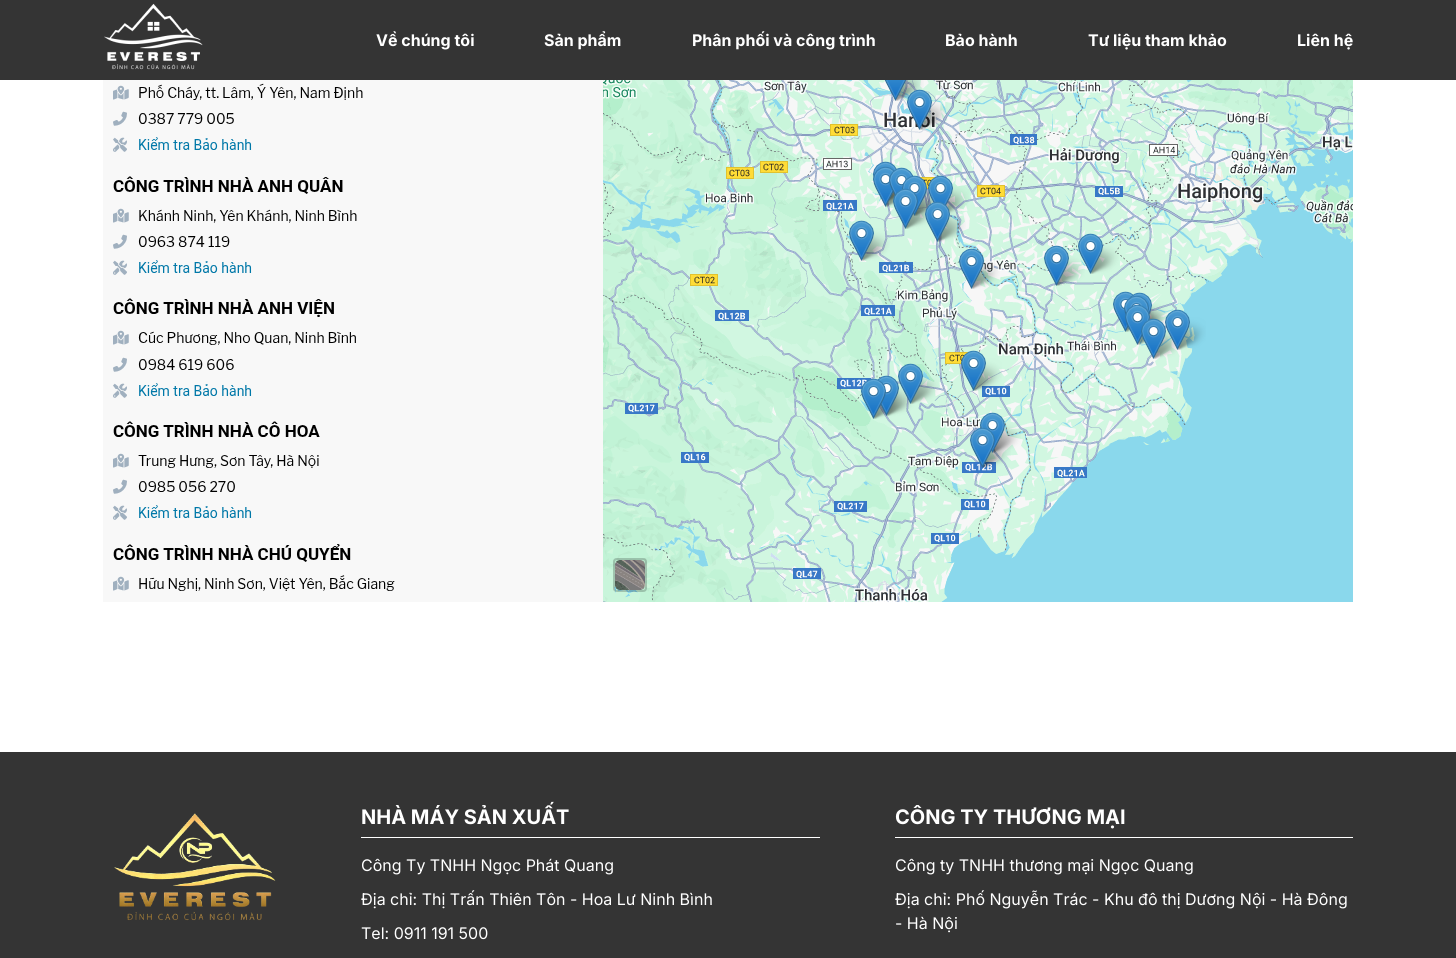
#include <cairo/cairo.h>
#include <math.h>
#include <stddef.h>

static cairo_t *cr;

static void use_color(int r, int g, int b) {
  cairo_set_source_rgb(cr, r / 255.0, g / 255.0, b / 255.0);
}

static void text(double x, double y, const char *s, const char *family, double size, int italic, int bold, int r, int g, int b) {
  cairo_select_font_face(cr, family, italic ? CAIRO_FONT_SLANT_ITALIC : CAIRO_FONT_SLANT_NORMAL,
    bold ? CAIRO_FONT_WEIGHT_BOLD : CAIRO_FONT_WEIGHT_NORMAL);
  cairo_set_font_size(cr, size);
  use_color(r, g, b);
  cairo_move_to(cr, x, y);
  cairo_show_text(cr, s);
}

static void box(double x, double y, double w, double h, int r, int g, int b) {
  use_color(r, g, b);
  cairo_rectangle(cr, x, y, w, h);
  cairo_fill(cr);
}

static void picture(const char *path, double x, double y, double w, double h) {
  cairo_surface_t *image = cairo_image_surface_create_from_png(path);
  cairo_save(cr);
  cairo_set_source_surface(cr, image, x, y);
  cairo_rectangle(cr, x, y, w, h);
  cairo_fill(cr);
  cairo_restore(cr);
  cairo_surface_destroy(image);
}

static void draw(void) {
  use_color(255, 255, 255);
  cairo_paint(cr);
  box(0, 0, 1456, 80, 52, 52, 52);
  picture("img_01.png", 104, 3, 99, 67);
  picture("img_02.png", 103, 80, 1250, 522);
  box(0, 752, 1456, 206, 52, 52, 52);
  picture("img_03.png", 114, 813, 162, 108);
  box(361, 837, 459, 1, 255, 255, 255);
  box(895, 837, 458, 1, 255, 255, 255);
  text(376, 46, "Về chúng tôi", "Inter", 16, 0, 1, 255, 255, 255);
  text(544, 46, "Sản phẩm", "Inter", 16, 0, 1, 255, 255, 255);
  text(692, 46, "Phân phối và công trình", "Inter", 16, 0, 1, 255, 255, 255);
  text(945, 46, "Bảo hành", "Inter", 16, 0, 1, 255, 255, 255);
  text(1088, 46, "Tư liệu tham khảo", "Inter", 16, 0, 1, 255, 255, 255);
  text(1297, 46, "Liên hệ", "Inter", 16, 0, 1, 255, 255, 255);
  text(361, 824, "NHÀ MÁY SẢN XUẤT", "Inter", 20, 0, 1, 255, 255, 255);
  text(361, 871, "Công Ty TNHH Ngọc Phát Quang", "Inter", 16, 0, 0, 255, 255, 255);
  text(361, 905, "Địa chỉ: Thị Trấn Thiên Tôn - Hoa Lư Ninh Bình", "Inter", 16, 0, 0, 255, 255, 255);
  text(361, 939, "Tel: 0911 191 500", "Inter", 16, 0, 0, 255, 255, 255);
  text(895, 824, "CÔNG TY THƯƠNG MẠI", "Inter", 20, 0, 1, 255, 255, 255);
  text(895, 871, "Công ty TNHH thương mại Ngọc Quang", "Inter", 16, 0, 0, 255, 255, 255);
  text(895, 905, "Địa chỉ: Phố Nguyễn Trác - Khu đô thị Dương Nội - Hà Đông", "Inter", 16, 0, 0, 255, 255, 255);
  text(895, 929, "- Hà Nội", "Inter", 16, 0, 0, 255, 255, 255);
}

int main(void) {
  cairo_surface_t *surface = cairo_image_surface_create(CAIRO_FORMAT_RGB24, 1456, 958);
  cr = cairo_create(surface);
  cairo_font_options_t *options = cairo_font_options_create();
  cairo_font_options_set_hint_metrics(options, CAIRO_HINT_METRICS_OFF);
  cairo_font_options_set_hint_style(options, CAIRO_HINT_STYLE_NONE);
  cairo_set_font_options(cr, options);
  cairo_set_miter_limit(cr, 4);
  draw();
  cairo_surface_write_to_png(surface, "out.png");
  cairo_font_options_destroy(options);
  cairo_destroy(cr);
  cairo_surface_destroy(surface);
  return 0;
}
